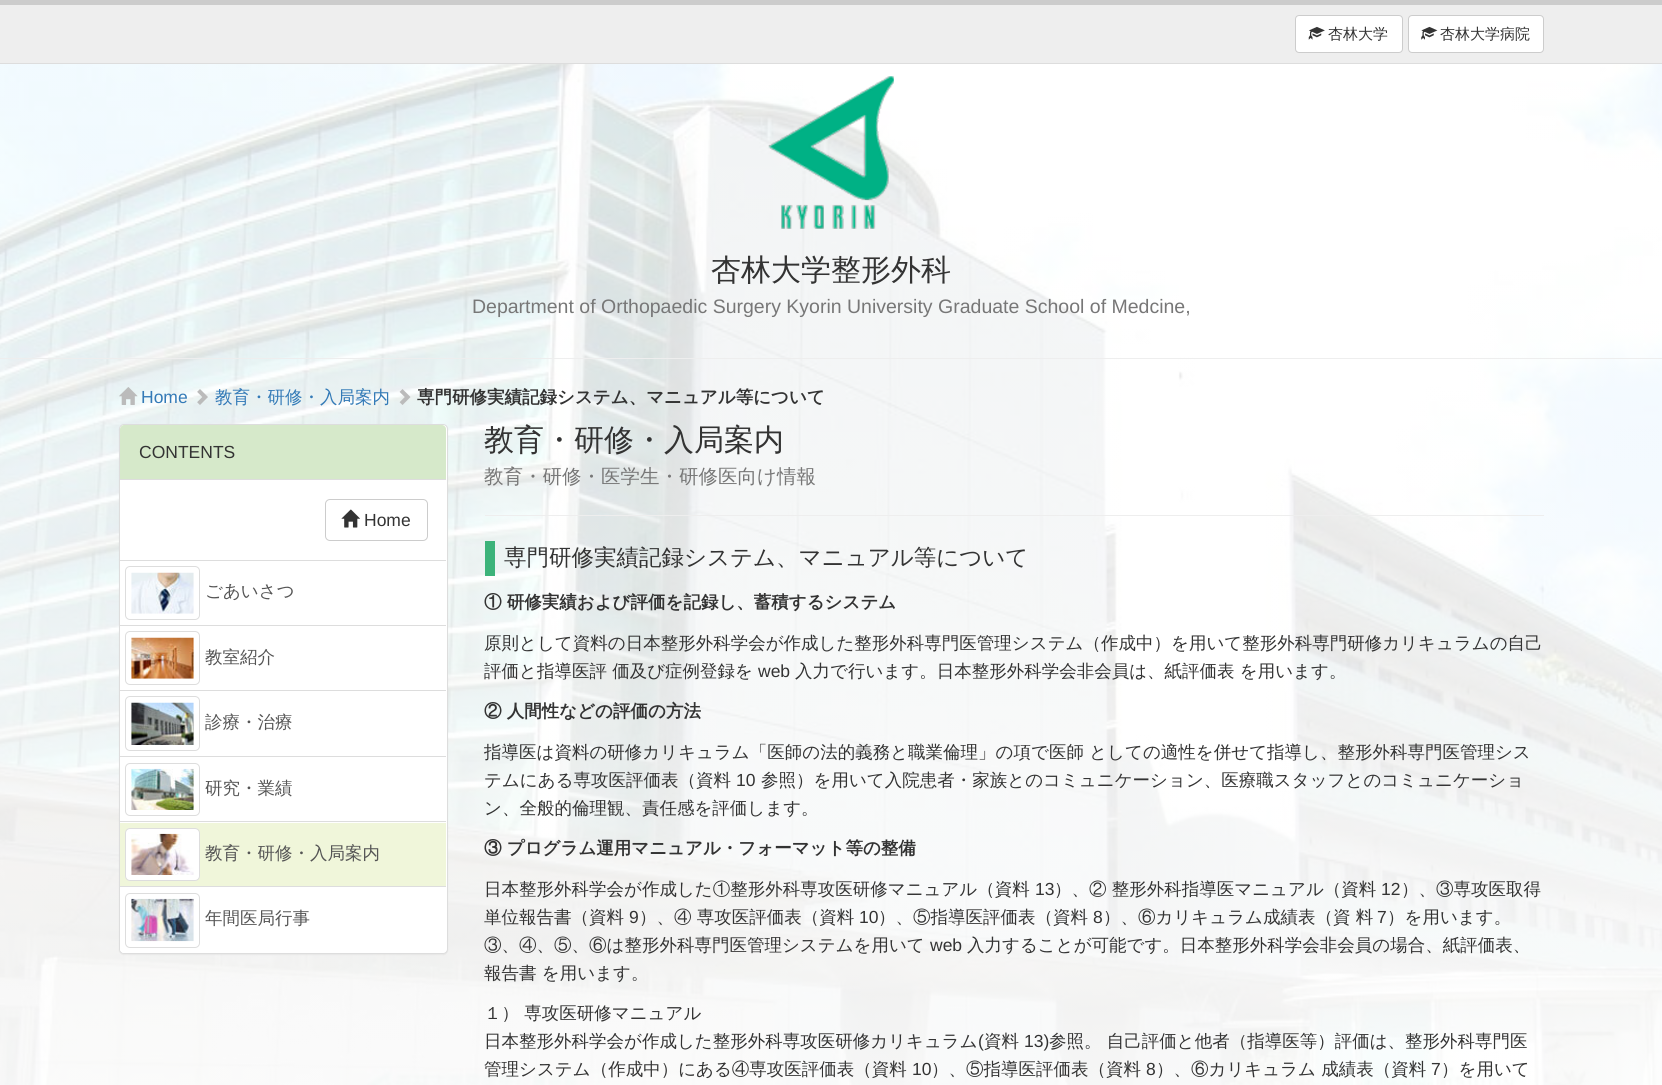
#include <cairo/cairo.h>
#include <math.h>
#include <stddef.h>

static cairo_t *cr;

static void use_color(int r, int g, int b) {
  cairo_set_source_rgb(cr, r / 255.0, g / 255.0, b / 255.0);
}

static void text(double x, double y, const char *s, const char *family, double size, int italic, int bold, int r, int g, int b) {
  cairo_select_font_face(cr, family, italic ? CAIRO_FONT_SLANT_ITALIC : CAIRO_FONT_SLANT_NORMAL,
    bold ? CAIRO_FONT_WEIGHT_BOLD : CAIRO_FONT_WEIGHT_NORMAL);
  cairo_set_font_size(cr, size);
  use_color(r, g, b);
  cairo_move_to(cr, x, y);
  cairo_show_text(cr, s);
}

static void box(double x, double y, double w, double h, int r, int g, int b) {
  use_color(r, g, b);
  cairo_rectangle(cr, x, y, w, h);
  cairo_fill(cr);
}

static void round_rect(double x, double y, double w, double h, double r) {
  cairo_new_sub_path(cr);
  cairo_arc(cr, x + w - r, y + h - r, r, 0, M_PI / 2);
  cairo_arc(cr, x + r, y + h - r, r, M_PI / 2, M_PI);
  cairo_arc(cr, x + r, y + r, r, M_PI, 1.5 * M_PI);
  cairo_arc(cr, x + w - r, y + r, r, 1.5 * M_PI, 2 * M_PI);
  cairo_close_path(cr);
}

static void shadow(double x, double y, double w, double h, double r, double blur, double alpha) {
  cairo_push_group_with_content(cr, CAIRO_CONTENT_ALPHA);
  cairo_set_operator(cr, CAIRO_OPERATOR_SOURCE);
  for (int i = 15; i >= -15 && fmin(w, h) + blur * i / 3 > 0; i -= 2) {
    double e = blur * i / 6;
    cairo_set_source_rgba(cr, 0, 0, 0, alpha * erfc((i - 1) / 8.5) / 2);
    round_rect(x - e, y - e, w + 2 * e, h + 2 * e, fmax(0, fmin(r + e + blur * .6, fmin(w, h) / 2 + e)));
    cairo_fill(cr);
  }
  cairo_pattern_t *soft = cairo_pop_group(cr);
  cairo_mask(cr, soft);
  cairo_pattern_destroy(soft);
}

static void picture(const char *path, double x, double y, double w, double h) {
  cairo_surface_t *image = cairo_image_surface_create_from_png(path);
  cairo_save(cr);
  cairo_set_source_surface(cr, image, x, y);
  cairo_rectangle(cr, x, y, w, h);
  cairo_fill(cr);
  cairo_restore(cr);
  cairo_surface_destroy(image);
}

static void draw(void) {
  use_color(255, 255, 255);
  cairo_paint(cr);
  picture("img_01.png", 0, 64, 1662, 1021);
  box(0, 5, 1662, 58, 238, 238, 238);
  box(0, 0, 1662, 5, 204, 204, 204);
  box(0, 63, 1662, 1, 221, 221, 221);
  use_color(255, 255, 255);
  round_rect(1295.5, 15.5, 107, 37, 3.5);
  cairo_fill_preserve(cr);
  use_color(204, 204, 204);
  cairo_set_line_width(cr, 1);
  cairo_stroke(cr);
  picture("img_02.png", 1308, 26, 17, 14);
  use_color(255, 255, 255);
  round_rect(1408.5, 15.5, 135, 37, 3.5);
  cairo_fill_preserve(cr);
  use_color(204, 204, 204);
  cairo_stroke(cr);
  picture("img_03.png", 1421, 26, 17, 14);
  picture("img_04.png", 768, 76, 126, 153);
  box(0, 358, 1662, 1, 238, 238, 238);
  picture("img_05.png", 119, 387, 19, 18);
  picture("img_06.png", 197, 389, 11, 16);
  picture("img_07.png", 399, 389, 12, 16);
  use_color(0, 0, 0);
  shadow(119, 425, 329, 530, 5, 0.5, 0.05);
  use_color(255, 255, 255);
  round_rect(119.5, 424.5, 328, 529, 4.5);
  cairo_fill_preserve(cr);
  use_color(221, 221, 221);
  cairo_stroke(cr);
  use_color(214, 233, 202);
  cairo_new_path(cr);
  cairo_move_to(cr, 124, 425);
  cairo_line_to(cr, 442, 425);
  cairo_curve_to(cr, 444, 425, 446, 427, 446, 429);
  cairo_line_to(cr, 446, 480);
  cairo_line_to(cr, 120, 480);
  cairo_line_to(cr, 120, 429);
  cairo_curve_to(cr, 120, 427, 122, 425, 124, 425);
  cairo_close_path(cr);
  cairo_fill(cr);
  box(120, 479, 326, 1, 221, 221, 221);
  round_rect(325.5, 499.5, 102, 41, 4.5);
  use_color(204, 204, 204);
  cairo_stroke(cr);
  picture("img_08.png", 341, 509, 19, 19);
  box(120, 560, 326, 1, 221, 221, 221);
  box(120, 625, 326, 1, 221, 221, 221);
  round_rect(125.5, 566.5, 74, 53, 4.5);
  cairo_stroke(cr);
  picture("img_09.png", 131, 572, 63, 42);
  box(120, 690, 326, 1, 221, 221, 221);
  round_rect(125.5, 631.5, 74, 53, 4.5);
  cairo_stroke(cr);
  picture("img_10.png", 131, 637, 63, 42);
  box(120, 756, 326, 1, 221, 221, 221);
  round_rect(125.5, 696.5, 74, 54, 4.5);
  cairo_stroke(cr);
  picture("img_11.png", 131, 702, 63, 43);
  box(120, 821, 326, 1, 221, 221, 221);
  round_rect(125.5, 763.5, 74, 52, 4.5);
  cairo_stroke(cr);
  picture("img_12.png", 131, 768, 63, 42);
  box(120, 823, 326, 63, 240, 246, 218);
  use_color(255, 255, 255);
  round_rect(125.5, 828.5, 74, 52, 4.5);
  cairo_fill_preserve(cr);
  use_color(221, 221, 221);
  cairo_stroke(cr);
  picture("img_13.png", 131, 833, 63, 42);
  use_color(255, 255, 255);
  cairo_new_path(cr);
  cairo_move_to(cr, 120, 886);
  cairo_line_to(cr, 446, 886);
  cairo_line_to(cr, 446, 949);
  cairo_curve_to(cr, 446, 951, 444, 953, 442, 953);
  cairo_line_to(cr, 124, 953);
  cairo_curve_to(cr, 122, 953, 120, 951, 120, 949);
  cairo_close_path(cr);
  cairo_fill(cr);
  box(120, 886, 326, 1, 221, 221, 221);
  round_rect(125.5, 893.5, 74, 54, 4.5);
  cairo_stroke(cr);
  picture("img_14.png", 131, 898, 63, 44);
  box(485, 515, 1059, 1, 238, 238, 238);
  box(485, 541, 10, 35, 60, 179, 122);
  text(1328, 39, "杏林大学", "WenQuanYi Zen Hei Medium", 15, 0, 0, 51, 51, 51);
  text(1440, 39, "杏林大学病院", "WenQuanYi Zen Hei Medium", 15, 0, 0, 51, 51, 51);
  text(711, 280, "杏林大学整形外科", "WenQuanYi Zen Hei Medium", 30, 0, 0, 51, 51, 51);
  text(472, 313, "Department of Orthopaedic Surgery Kyorin University Graduate School of Medcine,", "Liberation Sans", 19.5, 0, 0, 119, 119, 119);
  text(141, 403, "Home", "Liberation Sans", 17.5, 0, 0, 51, 122, 183);
  text(215, 403, "教育・研修・入局案内", "WenQuanYi Zen Hei Medium", 17.5, 0, 0, 51, 122, 183);
  text(417, 403, "専門研修実績記録システム、マニュアル等について", "WenQuanYi Zen Hei", 17.5, 0, 1, 51, 51, 51);
  text(139, 458, "CONTENTS", "Liberation Sans", 17.5, 0, 0, 51, 51, 51);
  text(364, 526, "Home", "Liberation Sans", 17.5, 0, 0, 51, 51, 51);
  text(205, 597, "ごあいさつ", "WenQuanYi Zen Hei Medium", 17.5, 0, 0, 85, 85, 85);
  text(205, 663, "教室紹介", "WenQuanYi Zen Hei Medium", 17.5, 0, 0, 85, 85, 85);
  text(205, 728, "診療・治療", "WenQuanYi Zen Hei Medium", 17.5, 0, 0, 85, 85, 85);
  text(205, 794, "研究・業績", "WenQuanYi Zen Hei Medium", 17.5, 0, 0, 85, 85, 85);
  text(205, 859, "教育・研修・入局案内", "WenQuanYi Zen Hei Medium", 17.5, 0, 0, 85, 85, 85);
  text(205, 924, "年間医局行事", "WenQuanYi Zen Hei Medium", 17.5, 0, 0, 85, 85, 85);
  text(484, 450, "教育・研修・入局案内", "WenQuanYi Zen Hei Medium", 30, 0, 0, 51, 51, 51);
  text(484, 483, "教育・研修・医学生・研修医向け情報", "WenQuanYi Zen Hei Medium", 19.5, 0, 0, 119, 119, 119);
  text(504, 565, "専門研修実績記録システム、マニュアル等について", "WenQuanYi Zen Hei Medium", 22.5, 0, 0, 51, 51, 51);
  text(484, 608, "① 研修実績および評価を記録し、蓄積するシステム", "WenQuanYi Zen Hei", 17.5, 0, 1, 51, 51, 51);
  text(484, 649, "原則として資料の日本整形外科学会が作成した整形外科専門医管理システム（作成中）を用いて整形外科専門研修カリキュラムの自己", "WenQuanYi Zen Hei Medium", 17.5, 0, 0, 51, 51, 51);
  text(484, 677, "評価と指導医評 価及び症例登録を", "WenQuanYi Zen Hei Medium", 17.5, 0, 0, 51, 51, 51);
  text(758, 677, "web", "Liberation Sans", 17.5, 0, 0, 51, 51, 51);
  text(795, 677, "入力で行います。日本整形外科学会非会員は、紙評価表 を用います。", "WenQuanYi Zen Hei Medium", 17.5, 0, 0, 51, 51, 51);
  text(484, 717, "② 人間性などの評価の方法", "WenQuanYi Zen Hei", 17.5, 0, 1, 51, 51, 51);
  text(484, 758, "指導医は資料の研修カリキュラム「医師の法的義務と職業倫理」の項で医師 としての適性を併せて指導し、整形外科専門医管理シス", "WenQuanYi Zen Hei Medium", 17.5, 0, 0, 51, 51, 51);
  text(484, 786, "テムにある専攻医評価表（資料", "WenQuanYi Zen Hei Medium", 17.5, 0, 0, 51, 51, 51);
  text(736, 786, "10", "Liberation Sans", 17.5, 0, 0, 51, 51, 51);
  text(761, 786, "参照）を用いて入院患者・家族とのコミュニケーション、医療職スタッフとのコミュニケーショ", "WenQuanYi Zen Hei Medium", 17.5, 0, 0, 51, 51, 51);
  text(484, 814, "ン、全般的倫理観、責任感を評価します。", "WenQuanYi Zen Hei Medium", 17.5, 0, 0, 51, 51, 51);
  text(484, 854, "③ プログラム運用マニュアル・フォーマット等の整備", "WenQuanYi Zen Hei", 17.5, 0, 1, 51, 51, 51);
  text(484, 895, "日本整形外科学会が作成した①整形外科専攻医研修マニュアル（資料", "WenQuanYi Zen Hei Medium", 17.5, 0, 0, 51, 51, 51);
  text(1035, 895, "13", "Liberation Sans", 17.5, 0, 0, 51, 51, 51);
  text(1054, 895, "）、② 整形外科指導医マニュアル（資料", "WenQuanYi Zen Hei Medium", 17.5, 0, 0, 51, 51, 51);
  text(1381, 895, "12", "Liberation Sans", 17.5, 0, 0, 51, 51, 51);
  text(1401, 895, "）、③専攻医取得", "WenQuanYi Zen Hei Medium", 17.5, 0, 0, 51, 51, 51);
  text(484, 923, "単位報告書（資料", "WenQuanYi Zen Hei Medium", 17.5, 0, 0, 51, 51, 51);
  text(629, 923, "9", "Liberation Sans", 17.5, 0, 0, 51, 51, 51);
  text(639, 923, "）、④ 専攻医評価表（資料", "WenQuanYi Zen Hei Medium", 17.5, 0, 0, 51, 51, 51);
  text(859, 923, "10", "Liberation Sans", 17.5, 0, 0, 51, 51, 51);
  text(878, 923, "）、⑤指導医評価表（資料", "WenQuanYi Zen Hei Medium", 17.5, 0, 0, 51, 51, 51);
  text(1093, 923, "8", "Liberation Sans", 17.5, 0, 0, 51, 51, 51);
  text(1103, 923, "）、⑥カリキュラム成績表（資 料", "WenQuanYi Zen Hei Medium", 17.5, 0, 0, 51, 51, 51);
  text(1377, 923, "7", "Liberation Sans", 17.5, 0, 0, 51, 51, 51);
  text(1387, 923, "）を用います。", "WenQuanYi Zen Hei Medium", 17.5, 0, 0, 51, 51, 51);
  text(484, 951, "③、④、⑤、⑥は整形外科専門医管理システムを用いて", "WenQuanYi Zen Hei Medium", 17.5, 0, 0, 51, 51, 51);
  text(930, 951, "web", "Liberation Sans", 17.5, 0, 0, 51, 51, 51);
  text(967, 951, "入力することが可能です。日本整形外科学会非会員の場合、紙評価表、", "WenQuanYi Zen Hei Medium", 17.5, 0, 0, 51, 51, 51);
  text(484, 979, "報告書 を用います。", "WenQuanYi Zen Hei Medium", 17.5, 0, 0, 51, 51, 51);
  text(484, 1019, "１） 専攻医研修マニュアル", "WenQuanYi Zen Hei Medium", 17.5, 0, 0, 51, 51, 51);
  text(484, 1047, "日本整形外科学会が作成した整形外科専攻医研修カリキュラム", "WenQuanYi Zen Hei Medium", 17.5, 0, 0, 51, 51, 51);
  text(978, 1047, "(", "Liberation Sans", 17.5, 0, 0, 51, 51, 51);
  text(984, 1047, "資料", "WenQuanYi Zen Hei Medium", 17.5, 0, 0, 51, 51, 51);
  text(1024, 1047, "13)", "Liberation Sans", 17.5, 0, 0, 51, 51, 51);
  text(1049, 1047, "参照。 自己評価と他者（指導医等）評価は、整形外科専門医", "WenQuanYi Zen Hei Medium", 17.5, 0, 0, 51, 51, 51);
  text(484, 1075, "管理システム（作成中）にある④専攻医評価表（資料", "WenQuanYi Zen Hei Medium", 17.5, 0, 0, 51, 51, 51);
  text(912, 1075, "10", "Liberation Sans", 17.5, 0, 0, 51, 51, 51);
  text(931, 1075, "）、⑤指導医評価表（資料", "WenQuanYi Zen Hei Medium", 17.5, 0, 0, 51, 51, 51);
  text(1146, 1075, "8", "Liberation Sans", 17.5, 0, 0, 51, 51, 51);
  text(1156, 1075, "）、⑥カリキュラム 成績表（資料", "WenQuanYi Zen Hei Medium", 17.5, 0, 0, 51, 51, 51);
  text(1431, 1075, "7", "Liberation Sans", 17.5, 0, 0, 51, 51, 51);
  text(1441, 1075, "）を用いて", "WenQuanYi Zen Hei Medium", 17.5, 0, 0, 51, 51, 51);
}

int main(void) {
  cairo_surface_t *surface = cairo_image_surface_create(CAIRO_FORMAT_RGB24, 1662, 1085);
  cr = cairo_create(surface);
  cairo_font_options_t *options = cairo_font_options_create();
  cairo_font_options_set_hint_metrics(options, CAIRO_HINT_METRICS_OFF);
  cairo_font_options_set_hint_style(options, CAIRO_HINT_STYLE_NONE);
  cairo_set_font_options(cr, options);
  cairo_set_miter_limit(cr, 4);
  draw();
  cairo_surface_write_to_png(surface, "out.png");
  cairo_font_options_destroy(options);
  cairo_destroy(cr);
  cairo_surface_destroy(surface);
  return 0;
}
